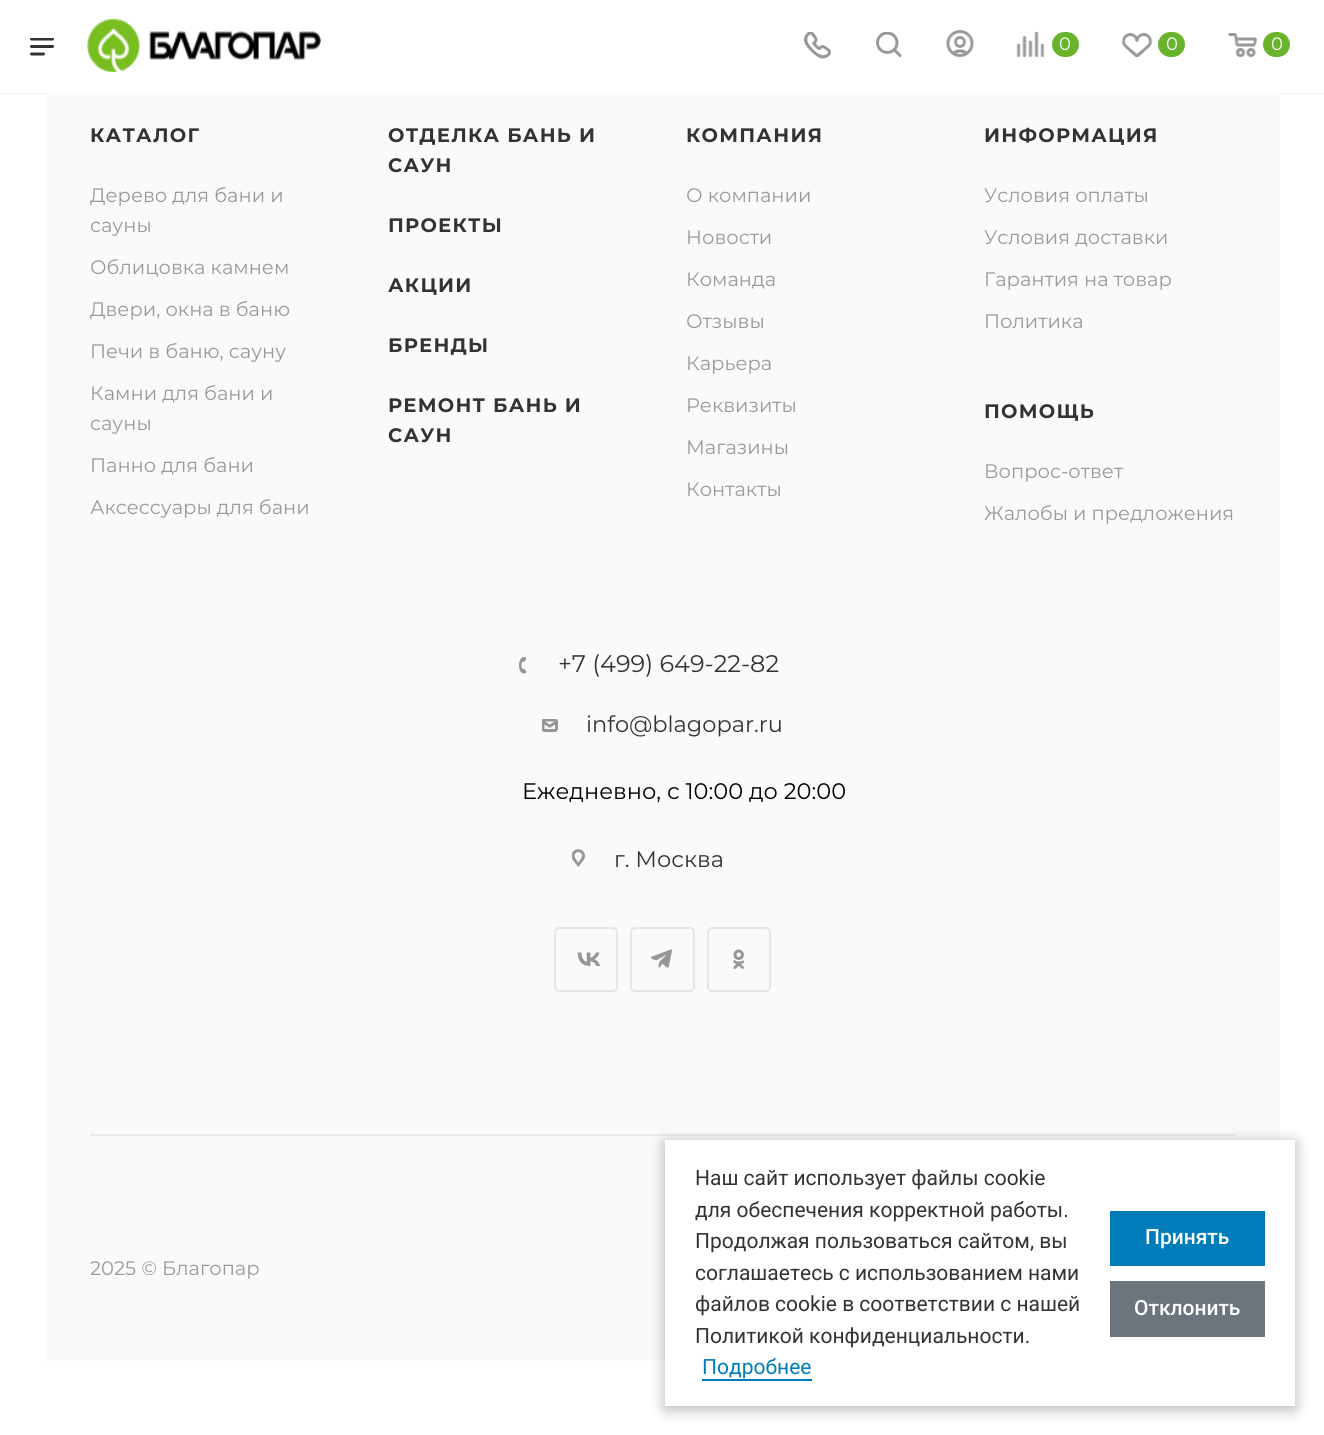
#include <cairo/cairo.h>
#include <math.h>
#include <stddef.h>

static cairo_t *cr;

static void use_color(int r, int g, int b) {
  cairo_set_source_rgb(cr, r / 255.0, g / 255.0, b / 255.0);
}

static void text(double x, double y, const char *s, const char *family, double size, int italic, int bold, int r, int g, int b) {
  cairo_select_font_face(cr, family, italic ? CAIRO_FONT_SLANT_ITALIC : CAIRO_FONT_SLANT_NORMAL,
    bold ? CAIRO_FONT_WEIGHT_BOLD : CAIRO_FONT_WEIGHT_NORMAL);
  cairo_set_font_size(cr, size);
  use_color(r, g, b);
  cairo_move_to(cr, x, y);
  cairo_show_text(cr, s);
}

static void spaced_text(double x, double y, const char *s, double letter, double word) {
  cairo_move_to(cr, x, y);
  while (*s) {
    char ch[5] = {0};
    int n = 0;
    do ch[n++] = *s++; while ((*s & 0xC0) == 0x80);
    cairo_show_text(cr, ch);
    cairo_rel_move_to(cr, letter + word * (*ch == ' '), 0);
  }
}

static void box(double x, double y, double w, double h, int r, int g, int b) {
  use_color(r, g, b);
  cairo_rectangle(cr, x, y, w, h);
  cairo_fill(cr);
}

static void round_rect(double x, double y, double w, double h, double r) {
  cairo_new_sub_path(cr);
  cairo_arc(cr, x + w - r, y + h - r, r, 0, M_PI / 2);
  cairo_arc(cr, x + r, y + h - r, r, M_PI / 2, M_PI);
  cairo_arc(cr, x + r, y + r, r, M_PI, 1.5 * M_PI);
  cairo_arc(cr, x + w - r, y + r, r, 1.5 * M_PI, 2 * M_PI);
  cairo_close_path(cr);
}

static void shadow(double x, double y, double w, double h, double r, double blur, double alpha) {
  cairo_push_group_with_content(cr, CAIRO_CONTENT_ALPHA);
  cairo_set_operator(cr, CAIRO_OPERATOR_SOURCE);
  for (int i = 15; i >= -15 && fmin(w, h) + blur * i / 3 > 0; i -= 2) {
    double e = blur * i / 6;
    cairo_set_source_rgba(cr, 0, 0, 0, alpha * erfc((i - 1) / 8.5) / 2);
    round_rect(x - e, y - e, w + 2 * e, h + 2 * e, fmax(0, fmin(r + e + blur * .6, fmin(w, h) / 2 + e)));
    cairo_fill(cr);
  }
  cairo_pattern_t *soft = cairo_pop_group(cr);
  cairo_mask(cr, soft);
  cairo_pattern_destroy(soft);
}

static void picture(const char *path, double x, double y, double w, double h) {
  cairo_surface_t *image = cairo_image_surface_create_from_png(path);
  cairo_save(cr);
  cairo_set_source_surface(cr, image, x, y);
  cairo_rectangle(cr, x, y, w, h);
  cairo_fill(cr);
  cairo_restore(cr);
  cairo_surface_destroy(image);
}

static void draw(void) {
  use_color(255, 255, 255);
  cairo_paint(cr);
  box(0, 93, 1324, 2, 248, 248, 248);
  picture("img_01.png", 30, 38, 24, 18);
  picture("img_02.png", 87, 18, 234, 54);
  picture("img_03.png", 804, 32, 27, 27);
  picture("img_04.png", 876, 32, 26, 25);
  picture("img_05.png", 946, 30, 28, 27);
  picture("img_06.png", 1016, 31, 29, 26);
  use_color(106, 180, 45);
  round_rect(1052, 32, 27, 25, 12.5);
  cairo_fill(cr);
  picture("img_07.png", 1121, 33, 32, 24);
  round_rect(1158, 32, 27, 25, 12.5);
  cairo_fill(cr);
  picture("img_08.png", 1228, 33, 30, 24);
  round_rect(1263, 32, 27, 25, 12.5);
  cairo_fill(cr);
  box(45, 95, 1235, 1266, 250, 250, 250);
  picture("img_09.png", 519, 657, 8, 17);
  picture("img_10.png", 542, 719, 16, 13);
  picture("img_11.png", 572, 849, 13, 18);
  picture("img_12.png", 577, 952, 24, 14);
  round_rect(555, 928, 62, 63, 4);
  use_color(230, 230, 230);
  cairo_stroke(cr);
  picture("img_13.png", 651, 949, 21, 19);
  round_rect(631, 928, 63, 63, 4);
  cairo_stroke(cr);
  picture("img_14.png", 733, 949, 12, 20);
  round_rect(708, 928, 62, 63, 4);
  cairo_stroke(cr);
  box(90, 1134, 1145, 2, 236, 236, 236);
  use_color(0, 0, 0);
  shadow(665, 1143, 630, 266, 0, 7.5, 0.3);
  box(665, 1140, 630, 266, 255, 255, 255);
  box(702, 1379, 110, 2, 0, 124, 186);
  box(1110, 1211, 155, 55, 0, 124, 186);
  box(1110, 1281, 155, 56, 108, 117, 125);
  text(1059, 50, "0", "Montserrat", 18, 0, 0, 255, 255, 255);
  text(1166, 50, "0", "Montserrat", 18, 0, 0, 255, 255, 255);
  text(1271, 50, "0", "Montserrat", 18, 0, 0, 255, 255, 255);
  cairo_select_font_face(cr, "Montserrat", CAIRO_FONT_SLANT_NORMAL, CAIRO_FONT_WEIGHT_BOLD);
  cairo_set_font_size(cr, 19.5);
  use_color(51, 51, 51);
  spaced_text(90, 142, "КАТАЛОГ", 1.25, 0);
  text(90, 202, "Дерево для бани и", "Montserrat", 19.5, 0, 0, 153, 153, 153);
  text(90, 232, "сауны", "Montserrat", 19.5, 0, 0, 153, 153, 153);
  text(90, 274, "Облицовка камнем", "Montserrat", 19.5, 0, 0, 153, 153, 153);
  text(90, 316, "Двери, окна в баню", "Montserrat", 19.5, 0, 0, 153, 153, 153);
  text(90, 358, "Печи в баню, сауну", "Montserrat", 19.5, 0, 0, 153, 153, 153);
  text(90, 400, "Камни для бани и", "Montserrat", 19.5, 0, 0, 153, 153, 153);
  text(90, 430, "сауны", "Montserrat", 19.5, 0, 0, 153, 153, 153);
  text(90, 472, "Панно для бани", "Montserrat", 19.5, 0, 0, 153, 153, 153);
  text(90, 514, "Аксессуары для бани", "Montserrat", 19.5, 0, 0, 153, 153, 153);
  cairo_select_font_face(cr, "Montserrat", CAIRO_FONT_SLANT_NORMAL, CAIRO_FONT_WEIGHT_BOLD);
  use_color(51, 51, 51);
  spaced_text(388, 142, "ОТДЕЛКА БАНЬ И", 1.25, 0);
  spaced_text(388, 172, "САУН", 1.25, 0);
  spaced_text(388, 232, "ПРОЕКТЫ", 1.25, 0);
  spaced_text(388, 292, "АКЦИИ", 1.25, 0);
  spaced_text(388, 352, "БРЕНДЫ", 1.25, 0);
  spaced_text(388, 412, "РЕМОНТ БАНЬ И", 1.25, 0);
  spaced_text(388, 442, "САУН", 1.25, 0);
  spaced_text(686, 142, "КОМПАНИЯ", 1.25, 0);
  text(686, 202, "О компании", "Montserrat", 19.5, 0, 0, 153, 153, 153);
  text(686, 244, "Новости", "Montserrat", 19.5, 0, 0, 153, 153, 153);
  text(686, 286, "Команда", "Montserrat", 19.5, 0, 0, 153, 153, 153);
  text(686, 328, "Отзывы", "Montserrat", 19.5, 0, 0, 153, 153, 153);
  text(686, 370, "Карьера", "Montserrat", 19.5, 0, 0, 153, 153, 153);
  text(686, 412, "Реквизиты", "Montserrat", 19.5, 0, 0, 153, 153, 153);
  text(686, 454, "Магазины", "Montserrat", 19.5, 0, 0, 153, 153, 153);
  text(686, 496, "Контакты", "Montserrat", 19.5, 0, 0, 153, 153, 153);
  cairo_select_font_face(cr, "Montserrat", CAIRO_FONT_SLANT_NORMAL, CAIRO_FONT_WEIGHT_BOLD);
  use_color(51, 51, 51);
  spaced_text(984, 142, "ИНФОРМАЦИЯ", 1.25, 0);
  text(984, 202, "Условия оплаты", "Montserrat", 19.5, 0, 0, 153, 153, 153);
  text(984, 244, "Условия доставки", "Montserrat", 19.5, 0, 0, 153, 153, 153);
  text(984, 286, "Гарантия на товар", "Montserrat", 19.5, 0, 0, 153, 153, 153);
  text(984, 328, "Политика", "Montserrat", 19.5, 0, 0, 153, 153, 153);
  cairo_select_font_face(cr, "Montserrat", CAIRO_FONT_SLANT_NORMAL, CAIRO_FONT_WEIGHT_BOLD);
  use_color(51, 51, 51);
  spaced_text(984, 418, "ПОМОЩЬ", 1.25, 0);
  text(984, 478, "Вопрос-ответ", "Montserrat", 19.5, 0, 0, 153, 153, 153);
  text(984, 520, "Жалобы и предложения", "Montserrat", 19.5, 0, 0, 153, 153, 153);
  text(558, 672, "+7 (499) 649-22-82", "Montserrat", 24, 0, 0, 51, 51, 51);
  text(586, 732, "info@blagopar.ru", "Montserrat", 22.5, 0, 0, 51, 51, 51);
  text(522, 799, "Ежедневно, с 10:00 до 20:00", "Montserrat", 22.5, 0, 0, 0, 0, 0);
  text(614, 867, "г. Москва", "Montserrat", 22.5, 0, 0, 51, 51, 51);
  text(90, 1275, "2025 © Благопар", "Montserrat", 19.5, 0, 0, 153, 153, 153);
  text(695, 1185, "Наш сайт использует файлы cookie", "Roboto", 21, 0, 0, 51, 51, 51);
  text(695, 1217, "для обеспечения корректной работы.", "Roboto", 21, 0, 0, 51, 51, 51);
  text(695, 1248, "Продолжая пользоваться сайтом, вы", "Roboto", 21, 0, 0, 51, 51, 51);
  text(695, 1280, "соглашаетесь с использованием нами", "Roboto", 21, 0, 0, 51, 51, 51);
  text(695, 1311, "файлов cookie в соответствии с нашей", "Roboto", 21, 0, 0, 51, 51, 51);
  text(695, 1343, "Политикой конфиденциальности.", "Roboto", 21, 0, 0, 51, 51, 51);
  text(702, 1374, "Подробнее", "Roboto", 21, 0, 0, 0, 124, 186);
  text(1145, 1244, "Принять", "Roboto Medium", 21, 0, 0, 255, 255, 255);
  text(1134, 1315, "Отклонить", "Roboto Medium", 21, 0, 0, 255, 255, 255);
}

int main(void) {
  cairo_surface_t *surface = cairo_image_surface_create(CAIRO_FORMAT_RGB24, 1324, 1435);
  cr = cairo_create(surface);
  cairo_font_options_t *options = cairo_font_options_create();
  cairo_font_options_set_hint_metrics(options, CAIRO_HINT_METRICS_OFF);
  cairo_font_options_set_hint_style(options, CAIRO_HINT_STYLE_NONE);
  cairo_set_font_options(cr, options);
  cairo_set_miter_limit(cr, 4);
  draw();
  cairo_surface_write_to_png(surface, "out.png");
  cairo_font_options_destroy(options);
  cairo_destroy(cr);
  cairo_surface_destroy(surface);
  return 0;
}
